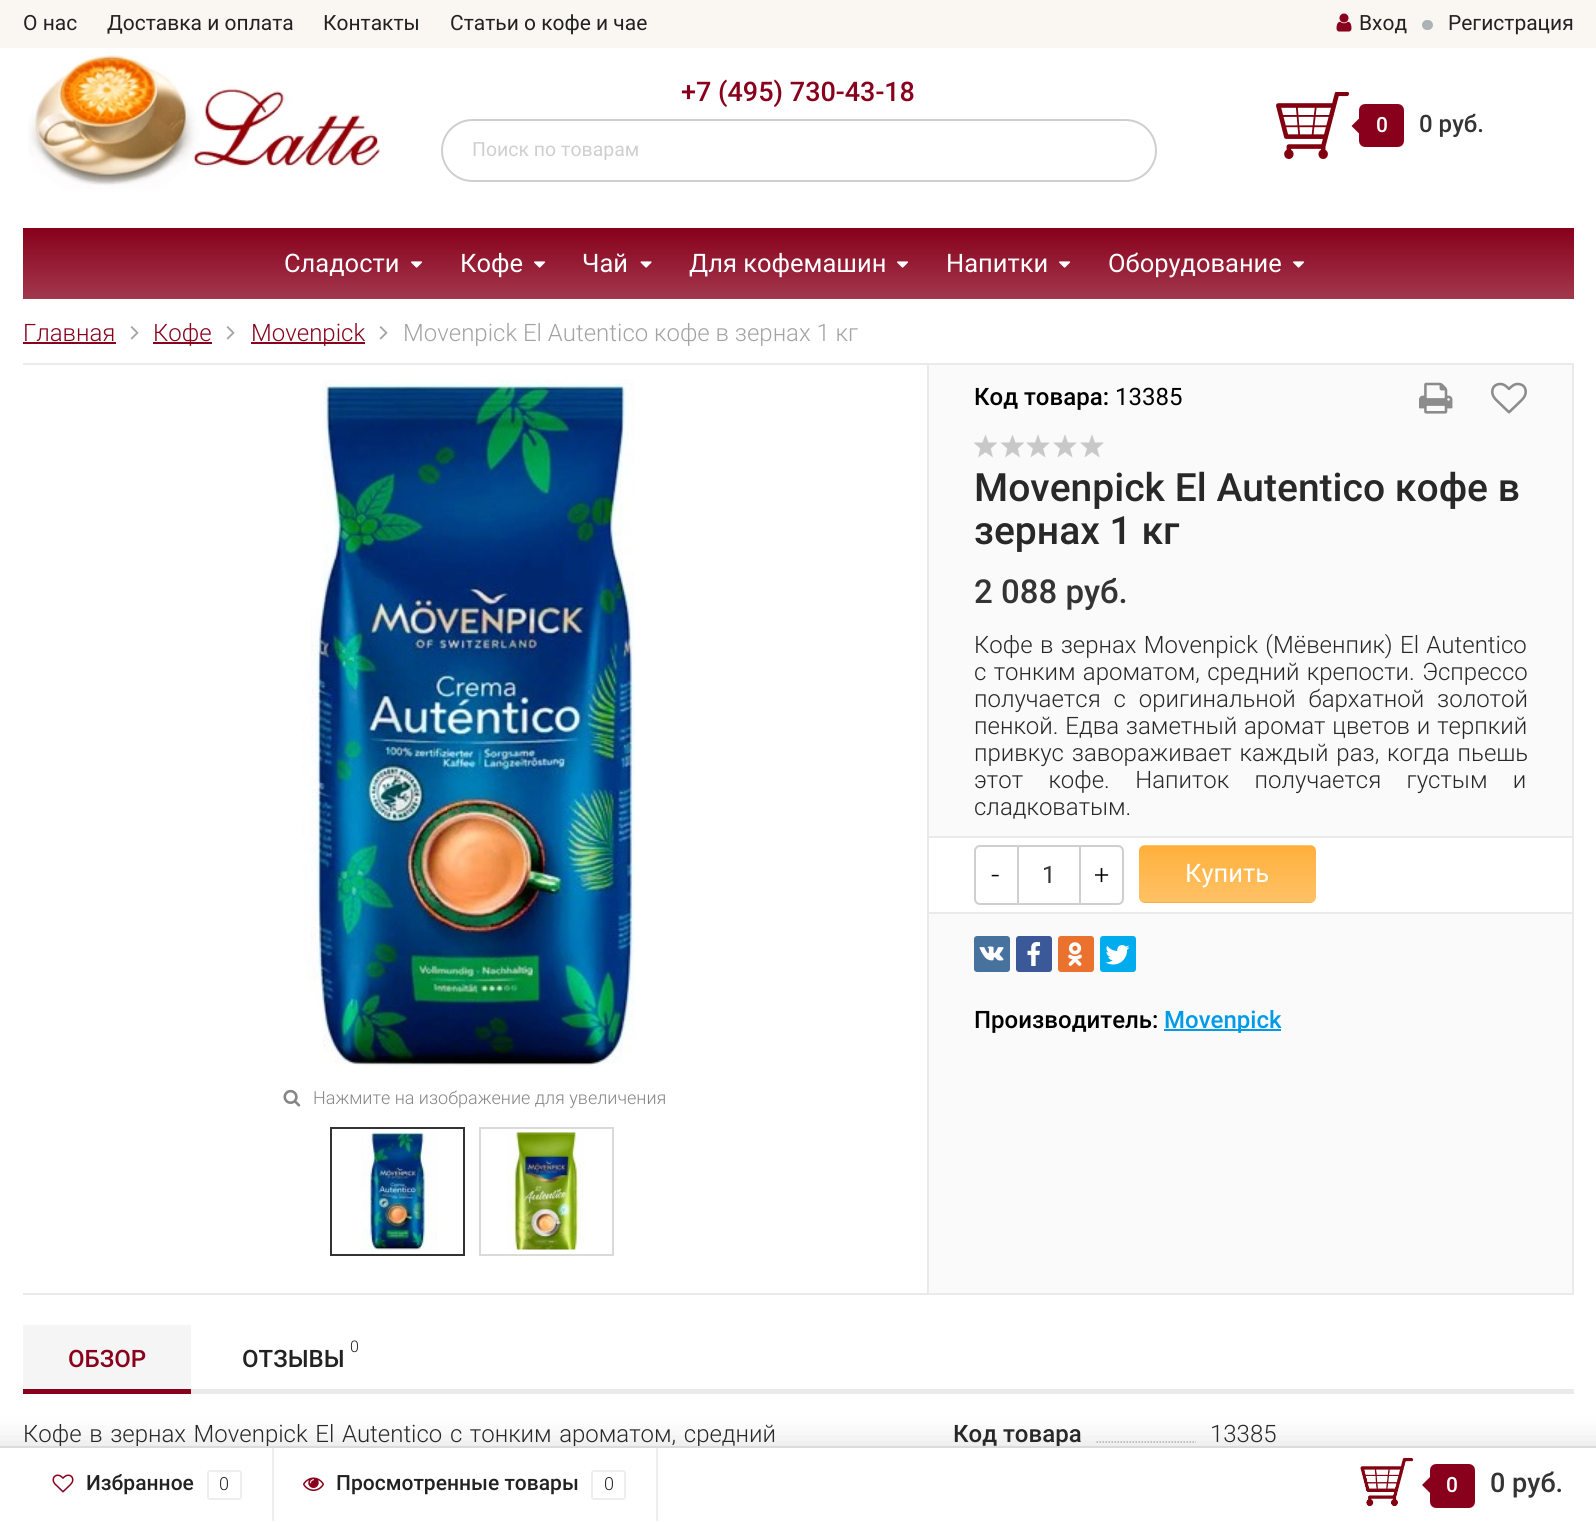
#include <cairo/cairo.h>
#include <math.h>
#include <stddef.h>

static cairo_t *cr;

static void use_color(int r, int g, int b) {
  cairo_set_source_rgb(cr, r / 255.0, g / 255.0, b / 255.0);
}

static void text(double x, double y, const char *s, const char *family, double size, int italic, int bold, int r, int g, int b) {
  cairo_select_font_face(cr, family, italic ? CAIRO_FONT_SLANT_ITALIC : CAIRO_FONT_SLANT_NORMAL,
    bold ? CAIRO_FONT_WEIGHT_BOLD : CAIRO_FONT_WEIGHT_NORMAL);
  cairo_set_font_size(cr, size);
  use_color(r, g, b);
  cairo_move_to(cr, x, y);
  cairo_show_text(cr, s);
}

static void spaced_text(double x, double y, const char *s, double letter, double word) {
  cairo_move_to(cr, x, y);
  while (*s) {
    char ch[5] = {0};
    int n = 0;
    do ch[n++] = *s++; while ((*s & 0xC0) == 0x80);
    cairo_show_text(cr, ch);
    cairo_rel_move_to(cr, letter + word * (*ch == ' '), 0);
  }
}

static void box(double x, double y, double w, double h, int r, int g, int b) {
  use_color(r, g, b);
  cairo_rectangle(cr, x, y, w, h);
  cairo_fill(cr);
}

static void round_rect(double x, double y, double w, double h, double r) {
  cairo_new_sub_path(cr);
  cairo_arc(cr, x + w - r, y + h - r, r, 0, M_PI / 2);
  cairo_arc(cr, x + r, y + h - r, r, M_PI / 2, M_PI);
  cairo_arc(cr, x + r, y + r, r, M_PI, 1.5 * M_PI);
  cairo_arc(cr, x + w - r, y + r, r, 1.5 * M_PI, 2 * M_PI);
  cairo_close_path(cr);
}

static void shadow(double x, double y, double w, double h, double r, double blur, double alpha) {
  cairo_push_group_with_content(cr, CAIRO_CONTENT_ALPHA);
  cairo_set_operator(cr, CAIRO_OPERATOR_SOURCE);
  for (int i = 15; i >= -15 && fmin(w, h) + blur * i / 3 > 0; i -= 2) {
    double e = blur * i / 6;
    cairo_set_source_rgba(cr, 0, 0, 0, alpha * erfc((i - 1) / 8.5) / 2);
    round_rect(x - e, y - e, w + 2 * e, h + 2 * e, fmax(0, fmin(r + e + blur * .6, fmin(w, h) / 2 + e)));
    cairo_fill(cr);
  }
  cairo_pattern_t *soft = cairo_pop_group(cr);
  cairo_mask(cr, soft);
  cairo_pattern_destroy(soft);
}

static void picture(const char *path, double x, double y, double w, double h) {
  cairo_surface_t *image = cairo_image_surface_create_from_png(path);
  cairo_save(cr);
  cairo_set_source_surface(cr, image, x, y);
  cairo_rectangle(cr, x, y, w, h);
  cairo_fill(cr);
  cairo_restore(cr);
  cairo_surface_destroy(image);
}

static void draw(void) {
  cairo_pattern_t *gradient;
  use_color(255, 255, 255);
  cairo_paint(cr);
  box(0, 0, 1596, 48, 250, 246, 241);
  picture("img_01.png", 1336, 13, 16, 19);
  use_color(172, 179, 180);
  round_rect(1422, 20, 11, 10, 5);
  cairo_fill(cr);
  picture("img_02.png", 28, 55, 352, 134);
  round_rect(442, 120, 714, 61, 30.5);
  use_color(208, 207, 207);
  cairo_stroke(cr);
  picture("img_03.png", 1276, 92, 73, 67);
  use_color(136, 0, 27);
  round_rect(1362, 107, 39, 37, 3);
  cairo_fill_preserve(cr);
  cairo_set_line_width(cr, 6);
  cairo_stroke(cr);
  cairo_new_path(cr);
  cairo_move_to(cr, 1365, 112.5);
  cairo_line_to(cr, 1365, 139.5);
  cairo_line_to(cr, 1351.5, 126);
  cairo_close_path(cr);
  cairo_fill(cr);
  gradient = cairo_pattern_create_linear(798, 228, 798, 299);
  cairo_pattern_add_color_stop_rgba(gradient, 0, 0.533, 0, 0.106, 1);
  cairo_pattern_add_color_stop_rgba(gradient, 1, 0.635, 0.22, 0.302, 1);
  cairo_set_source(cr, gradient);
  cairo_pattern_destroy(gradient);
  cairo_rectangle(cr, 23, 228, 1551, 71);
  cairo_fill(cr);
  picture("img_04.png", 411, 261, 12, 7);
  picture("img_04.png", 534, 261, 12, 7);
  picture("img_05.png", 640, 261, 12, 7);
  picture("img_04.png", 897, 261, 12, 7);
  picture("img_04.png", 1059, 261, 12, 7);
  picture("img_04.png", 1293, 261, 12, 7);
  box(23, 342, 93, 2, 136, 0, 27);
  picture("img_06.png", 130, 326, 9, 14);
  box(153, 342, 59, 2, 136, 0, 27);
  picture("img_06.png", 226, 326, 9, 14);
  box(251, 342, 114, 2, 136, 0, 27);
  picture("img_06.png", 379, 326, 9, 14);
  use_color(250, 250, 250);
  cairo_rectangle(cr, 928, 364, 645, 930);
  cairo_fill_preserve(cr);
  use_color(234, 234, 234);
  cairo_set_line_width(cr, 2);
  cairo_stroke(cr);
  picture("img_07.png", 1419, 382, 34, 32);
  picture("img_08.png", 1491, 382, 36, 32);
  picture("img_09.png", 973, 434, 24, 24);
  picture("img_09.png", 1000, 434, 24, 24);
  picture("img_10.png", 1026, 434, 24, 24);
  picture("img_11.png", 1053, 434, 24, 24);
  picture("img_11.png", 1080, 434, 24, 24);
  box(929, 838, 643, 74, 255, 255, 255);
  box(929, 836, 643, 2, 234, 234, 234);
  box(929, 912, 643, 2, 234, 234, 234);
  round_rect(975, 846, 148, 58, 5);
  use_color(208, 207, 207);
  cairo_stroke(cr);
  box(1017, 845, 2, 60, 208, 207, 207);
  box(1079, 845, 2, 60, 208, 207, 207);
  use_color(255, 176, 59);
  round_rect(1139, 845, 177, 58, 6);
  cairo_fill(cr);
  cairo_save(cr);
  round_rect(1139, 845, 177, 58, 6);
  cairo_clip(cr);
  gradient = cairo_pattern_create_linear(1227, 791, 1227, 846);
  cairo_pattern_add_color_stop_rgba(gradient, 0, 1, 1, 1, 0);
  cairo_pattern_add_color_stop_rgba(gradient, 1, 1, 1, 1, 0.22);
  cairo_set_source(cr, gradient);
  cairo_pattern_destroy(gradient);
  cairo_rectangle(cr, 1139, 845, 177, 1);
  cairo_fill(cr);
  gradient = cairo_pattern_create_linear(1227, 846, 1227, 902);
  cairo_pattern_add_color_stop_rgba(gradient, 0, 1, 1, 1, 0);
  cairo_pattern_add_color_stop_rgba(gradient, 1, 1, 1, 1, 0.22);
  cairo_set_source(cr, gradient);
  cairo_pattern_destroy(gradient);
  cairo_rectangle(cr, 1139, 851, 177, 51);
  cairo_fill(cr);
  cairo_restore(cr);
  use_color(72, 114, 158);
  round_rect(974, 936, 36, 36, 3);
  cairo_fill(cr);
  picture("img_12.png", 979, 946, 25, 15);
  use_color(59, 89, 152);
  round_rect(1016, 936, 36, 36, 3);
  cairo_fill(cr);
  picture("img_13.png", 1027, 942, 14, 24);
  use_color(235, 114, 46);
  round_rect(1058, 936, 36, 36, 3);
  cairo_fill(cr);
  picture("img_14.png", 1068, 942, 14, 24);
  use_color(0, 172, 237);
  round_rect(1100, 936, 36, 36, 3);
  cairo_fill(cr);
  picture("img_15.png", 1105, 945, 25, 20);
  box(1164, 1029, 117, 2, 0, 155, 231);
  box(23, 363, 904, 2, 234, 234, 234);
  box(23, 1293, 904, 2, 234, 234, 234);
  picture("img_16.png", 302, 379, 333, 690);
  picture("img_17.png", 283, 1089, 18, 18);
  cairo_rectangle(cr, 331, 1128, 133, 127);
  use_color(51, 51, 51);
  cairo_stroke(cr);
  picture("img_18.png", 361, 1132, 76, 118);
  cairo_rectangle(cr, 480, 1128, 133, 127);
  use_color(218, 218, 218);
  cairo_stroke(cr);
  picture("img_19.png", 507, 1132, 78, 118);
  box(23, 1325, 168, 64, 245, 245, 245);
  box(23, 1389, 168, 5, 136, 0, 27);
  box(191, 1389, 1383, 5, 234, 234, 234);
  cairo_new_path(cr);
  cairo_move_to(cr, 1096.5, 1442);
  cairo_line_to(cr, 1339.5, 1442);
  use_color(186, 186, 186);
  cairo_set_line_width(cr, 1.5);
  cairo_set_dash(cr, (double[]){1.5, 1.5}, 2, 0);
  cairo_stroke(cr);
  box(1196, 1441, 142, 2, 255, 255, 255);
  use_color(50, 50, 50);
  shadow(-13, 1443, 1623, 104, 0, 15, 0.15);
  box(0, 1448, 1596, 74, 255, 255, 255);
  box(272, 1448, 2, 73, 237, 237, 237);
  picture("img_20.png", 52, 1474, 22, 19);
  round_rect(208, 1471, 33, 28, 2);
  use_color(238, 238, 238);
  cairo_set_line_width(cr, 2);
  cairo_set_dash(cr, NULL, 0, 0);
  cairo_stroke(cr);
  box(656, 1448, 2, 73, 237, 237, 237);
  picture("img_21.png", 303, 1477, 21, 14);
  round_rect(592, 1471, 33, 28, 2);
  use_color(238, 238, 238);
  cairo_stroke(cr);
  picture("img_22.png", 1360, 1457, 54, 49);
  use_color(136, 0, 27);
  round_rect(1433, 1467, 39, 38, 3);
  cairo_fill_preserve(cr);
  cairo_set_line_width(cr, 6);
  cairo_stroke(cr);
  cairo_new_path(cr);
  cairo_move_to(cr, 1435.5, 1471.5);
  cairo_line_to(cr, 1435.5, 1498.5);
  cairo_line_to(cr, 1422, 1485);
  cairo_close_path(cr);
  cairo_fill(cr);
  text(23, 30, "О нас", "Roboto", 21, 0, 0, 34, 34, 34);
  text(107, 30, "Доставка и оплата", "Roboto", 21, 0, 0, 34, 34, 34);
  text(323, 30, "Контакты", "Roboto", 21, 0, 0, 34, 34, 34);
  text(450, 30, "Статьи о кофе и чае", "Roboto", 21, 0, 0, 34, 34, 34);
  text(1359, 30, "Вход", "Roboto", 21, 0, 0, 34, 34, 34);
  text(1448, 30, "Регистрация", "Roboto", 21, 0, 0, 34, 34, 34);
  text(681, 101, "+7 (495) 730-43-18", "Roboto Medium", 27, 0, 0, 136, 0, 27);
  text(472, 156, "Поиск по товарам", "Roboto", 19.5, 0, 0, 207, 207, 207);
  text(1376, 132, "0", "Roboto Medium", 21, 0, 0, 255, 255, 255);
  text(1419, 132, "0 руб.", "Roboto Medium", 24, 0, 0, 52, 52, 52);
  text(284, 272, "Сладости", "Roboto", 25.5, 0, 0, 255, 255, 255);
  text(460, 272, "Кофе", "Roboto", 25.5, 0, 0, 255, 255, 255);
  text(582, 272, "Чай", "Roboto", 25.5, 0, 0, 255, 255, 255);
  text(689, 272, "Для кофемашин", "Roboto", 25.5, 0, 0, 255, 255, 255);
  text(946, 272, "Напитки", "Roboto", 25.5, 0, 0, 255, 255, 255);
  text(1108, 272, "Оборудование", "Roboto", 25.5, 0, 0, 255, 255, 255);
  text(23, 341, "Главная", "Roboto Light", 24, 0, 0, 136, 0, 27);
  text(153, 341, "Кофе", "Roboto Light", 24, 0, 0, 136, 0, 27);
  text(251, 341, "Movenpick", "Roboto Light", 24, 0, 0, 136, 0, 27);
  text(403, 341, "Movenpick El Autentico кофе в зернах 1 кг", "Roboto Light", 24, 0, 0, 163, 163, 163);
  text(974, 405, "Код товара:", "Roboto Medium", 24, 0, 0, 0, 0, 0);
  text(1115, 405, "13385", "Roboto", 24, 0, 0, 0, 0, 0);
  text(974, 501, "Movenpick El Autentico кофе в", "Roboto Medium", 39, 0, 0, 40, 40, 40);
  text(974, 544, "зернах 1 кг", "Roboto Medium", 39, 0, 0, 40, 40, 40);
  text(974, 603, "2 088 руб.", "Roboto Medium", 33, 0, 0, 52, 52, 52);
  cairo_select_font_face(cr, "Roboto Light", CAIRO_FONT_SLANT_NORMAL, CAIRO_FONT_WEIGHT_NORMAL);
  cairo_set_font_size(cr, 24);
  use_color(40, 40, 40);
  spaced_text(974, 653, "Кофе в зернах Movenpick (Мёвенпик) El Autentico", 0, 1.5);
  spaced_text(974, 680, "с тонким ароматом, средний крепости. Эспрессо", 0, 1.5);
  spaced_text(974, 707, "получается с оригинальной бархатной золотой", 0, 7);
  spaced_text(974, 734, "пенкой. Едва заметный аромат цветов и терпкий", 0, 1);
  spaced_text(974, 761, "привкус завораживает каждый раз, когда пьешь", 0, 2);
  spaced_text(974, 788, "этот кофе. Напиток получается густым и", 0, 19.5);
  text(974, 815, "сладковатым.", "Roboto Light", 24, 0, 0, 40, 40, 40);
  text(991, 885, "-", "Roboto Light", 30, 0, 0, 0, 0, 0);
  text(1042, 883, "1", "Roboto", 24, 0, 0, 52, 52, 52);
  text(1094, 884, "+", "Roboto Light", 27, 0, 0, 0, 0, 0);
  text(1185, 882, "Купить", "Roboto", 25.5, 0, 0, 255, 255, 255);
  text(974, 1028, "Производитель:", "Roboto Medium", 24, 0, 0, 0, 0, 0);
  text(1164, 1028, "Movenpick", "Roboto Medium", 24, 0, 0, 0, 155, 231);
  text(313, 1104, "Нажмите на изображение для увеличения", "Roboto Light", 18, 0, 0, 133, 133, 133);
  text(68, 1367, "ОБЗОР", "Roboto Medium", 24, 0, 0, 136, 0, 27);
  text(350, 1352, "0", "Roboto Light", 16, 0, 0, 34, 34, 34);
  text(242, 1367, "ОТЗЫВЫ", "Roboto Medium", 24, 0, 0, 34, 34, 34);
  cairo_select_font_face(cr, "Roboto Light", CAIRO_FONT_SLANT_NORMAL, CAIRO_FONT_WEIGHT_NORMAL);
  use_color(40, 40, 40);
  spaced_text(23, 1442, "Кофе в зернах Movenpick El Autentico с тонким ароматом, средний", 0, 1.75);
  text(953, 1442, "Код товара", "Roboto Medium", 24, 0, 0, 40, 40, 40);
  text(1210, 1442, "13385", "Roboto Light", 24, 0, 0, 40, 40, 40);
  box(0, 1446, 1596, 2, 219, 219, 219);
  text(86, 1490, "Избранное", "Roboto Medium", 21, 0, 0, 34, 34, 34);
  text(219, 1490, "0", "Roboto Light", 18, 0, 0, 34, 34, 34);
  text(336, 1490, "Просмотренные товары", "Roboto Medium", 21, 0, 0, 34, 34, 34);
  text(604, 1490, "0", "Roboto Light", 18, 0, 0, 34, 34, 34);
  text(1446, 1492, "0", "Roboto Medium", 21, 0, 0, 255, 255, 255);
  text(1490, 1492, "0 руб.", "Roboto Medium", 27, 0, 0, 52, 52, 52);
}

int main(void) {
  cairo_surface_t *surface = cairo_image_surface_create(CAIRO_FORMAT_RGB24, 1596, 1522);
  cr = cairo_create(surface);
  cairo_font_options_t *options = cairo_font_options_create();
  cairo_font_options_set_hint_metrics(options, CAIRO_HINT_METRICS_OFF);
  cairo_font_options_set_hint_style(options, CAIRO_HINT_STYLE_NONE);
  cairo_set_font_options(cr, options);
  cairo_set_miter_limit(cr, 4);
  draw();
  cairo_surface_write_to_png(surface, "out.png");
  cairo_font_options_destroy(options);
  cairo_destroy(cr);
  cairo_surface_destroy(surface);
  return 0;
}
